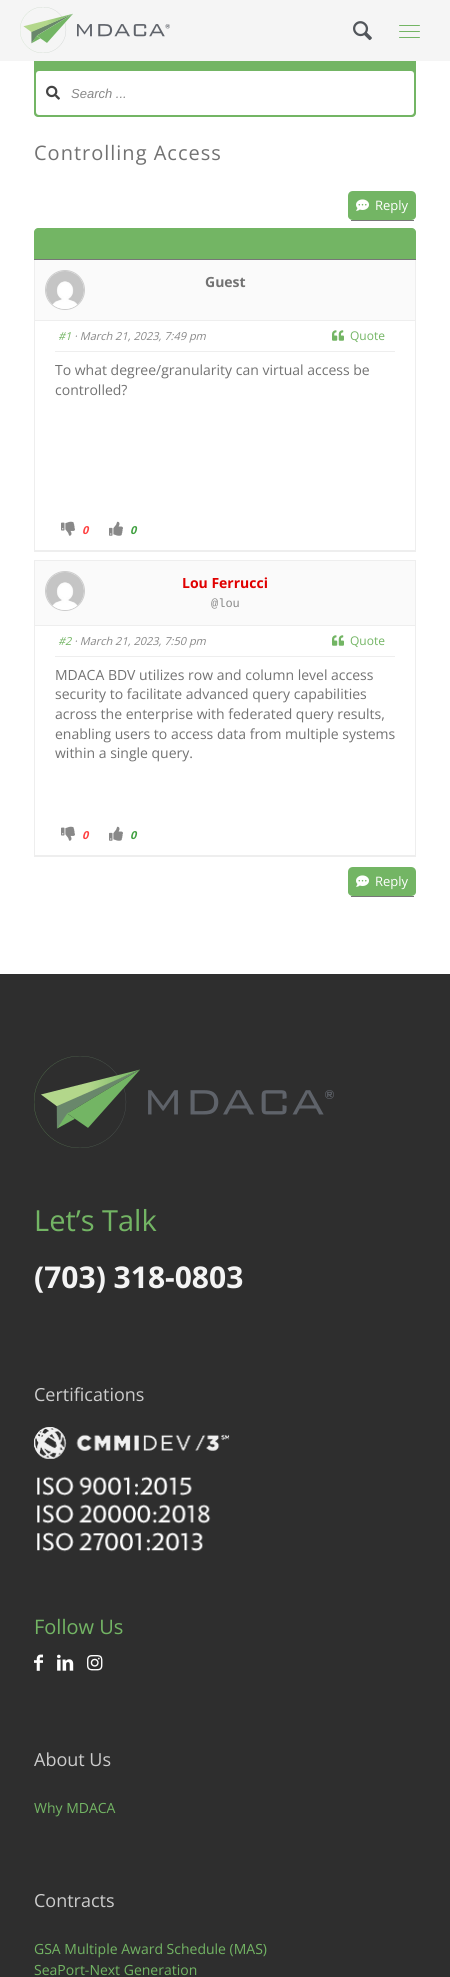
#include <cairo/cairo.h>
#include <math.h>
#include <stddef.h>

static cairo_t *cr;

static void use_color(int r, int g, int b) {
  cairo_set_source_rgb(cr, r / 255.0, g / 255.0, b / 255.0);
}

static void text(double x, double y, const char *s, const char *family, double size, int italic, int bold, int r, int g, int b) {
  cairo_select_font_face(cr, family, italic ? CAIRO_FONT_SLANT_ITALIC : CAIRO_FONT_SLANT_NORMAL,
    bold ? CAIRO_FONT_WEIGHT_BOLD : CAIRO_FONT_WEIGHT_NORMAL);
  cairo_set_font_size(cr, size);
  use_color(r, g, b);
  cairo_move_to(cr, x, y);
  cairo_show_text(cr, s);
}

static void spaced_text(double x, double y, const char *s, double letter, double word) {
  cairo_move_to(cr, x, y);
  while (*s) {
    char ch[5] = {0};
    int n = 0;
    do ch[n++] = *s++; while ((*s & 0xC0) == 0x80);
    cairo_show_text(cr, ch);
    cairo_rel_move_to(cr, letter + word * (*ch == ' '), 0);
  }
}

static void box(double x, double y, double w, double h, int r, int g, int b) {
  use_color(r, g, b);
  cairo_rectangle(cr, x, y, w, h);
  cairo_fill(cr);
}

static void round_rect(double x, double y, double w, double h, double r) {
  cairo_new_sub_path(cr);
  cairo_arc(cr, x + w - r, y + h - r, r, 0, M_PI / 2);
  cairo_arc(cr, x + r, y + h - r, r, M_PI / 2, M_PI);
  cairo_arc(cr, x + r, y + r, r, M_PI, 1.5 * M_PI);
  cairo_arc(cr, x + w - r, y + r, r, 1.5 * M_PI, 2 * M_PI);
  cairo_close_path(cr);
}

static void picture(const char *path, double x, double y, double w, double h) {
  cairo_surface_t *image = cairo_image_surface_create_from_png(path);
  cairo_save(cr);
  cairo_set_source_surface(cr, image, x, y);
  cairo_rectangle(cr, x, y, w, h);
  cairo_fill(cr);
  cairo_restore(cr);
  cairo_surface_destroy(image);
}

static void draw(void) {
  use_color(255, 255, 255);
  cairo_paint(cr);
  use_color(115, 181, 100);
  round_rect(34, 25, 382, 92, 4);
  cairo_fill(cr);
  box(0, 0, 450, 61, 245, 245, 245);
  picture("img_01.png", 20, 7, 150, 46);
  picture("img_02.png", 353, 21, 19, 20);
  use_color(115, 181, 100);
  round_rect(399, 31, 21, 1, 0.5);
  cairo_fill(cr);
  round_rect(399, 25, 21, 1, 0.5);
  cairo_fill(cr);
  round_rect(399, 37, 21, 1, 0.5);
  cairo_fill(cr);
  use_color(255, 255, 255);
  round_rect(36, 71, 378, 44, 3);
  cairo_fill(cr);
  picture("img_03.png", 46, 85, 14, 15);
  use_color(115, 181, 100);
  cairo_new_path(cr);
  cairo_move_to(cr, 353, 191);
  cairo_line_to(cr, 411, 191);
  cairo_curve_to(cr, 414, 191, 416, 193, 416, 196);
  cairo_line_to(cr, 416, 216);
  cairo_curve_to(cr, 416, 218, 414, 220, 411, 220);
  cairo_line_to(cr, 353, 220);
  cairo_curve_to(cr, 350, 220, 348, 218, 348, 216);
  cairo_line_to(cr, 348, 196);
  cairo_curve_to(cr, 348, 193, 350, 191, 353, 191);
  cairo_close_path(cr);
  cairo_fill(cr);
  box(351, 220, 63, 1, 119, 119, 119);
  picture("img_04.png", 356, 199, 13, 12);
  use_color(115, 181, 100);
  cairo_new_path(cr);
  cairo_move_to(cr, 38, 228);
  cairo_line_to(cr, 412, 228);
  cairo_curve_to(cr, 414, 228, 416, 230, 416, 232);
  cairo_line_to(cr, 416, 260);
  cairo_line_to(cr, 34, 260);
  cairo_line_to(cr, 34, 232);
  cairo_curve_to(cr, 34, 230, 36, 228, 38, 228);
  cairo_close_path(cr);
  cairo_fill(cr);
  box(34, 259, 382, 1, 119, 119, 119);
  box(35, 260, 380, 60, 250, 250, 250);
  box(415, 260, 1, 292, 238, 238, 238);
  box(34, 550, 382, 2, 238, 238, 238);
  box(34, 260, 1, 292, 238, 238, 238);
  use_color(255, 255, 255);
  cairo_arc(cr, 65, 290, 19.5, 0, 2 * M_PI);
  cairo_fill_preserve(cr);
  use_color(204, 204, 204);
  cairo_set_line_width(cr, 1);
  cairo_stroke(cr);
  picture("img_05.png", 46, 271, 38, 38);
  box(35, 320, 380, 1, 238, 238, 238);
  box(55, 351, 340, 1, 238, 238, 238);
  picture("img_06.png", 332, 330, 12, 11);
  picture("img_07.png", 61, 521, 14, 15);
  picture("img_08.png", 109, 521, 14, 15);
  box(35, 561, 380, 64, 250, 250, 250);
  box(34, 560, 382, 1, 238, 238, 238);
  box(415, 560, 1, 297, 238, 238, 238);
  box(34, 855, 382, 2, 238, 238, 238);
  box(34, 560, 1, 297, 238, 238, 238);
  use_color(255, 255, 255);
  cairo_arc(cr, 65, 591, 19.5, 0, 2 * M_PI);
  cairo_fill_preserve(cr);
  use_color(204, 204, 204);
  cairo_stroke(cr);
  picture("img_05.png", 46, 572, 38, 38);
  box(35, 625, 380, 1, 238, 238, 238);
  box(55, 656, 340, 1, 238, 238, 238);
  picture("img_06.png", 332, 635, 12, 11);
  picture("img_07.png", 61, 826, 14, 15);
  picture("img_08.png", 109, 826, 14, 15);
  use_color(115, 181, 100);
  cairo_new_path(cr);
  cairo_move_to(cr, 353, 867);
  cairo_line_to(cr, 411, 867);
  cairo_curve_to(cr, 414, 867, 416, 869, 416, 872);
  cairo_line_to(cr, 416, 892);
  cairo_curve_to(cr, 416, 894, 414, 896, 411, 896);
  cairo_line_to(cr, 353, 896);
  cairo_curve_to(cr, 350, 896, 348, 894, 348, 892);
  cairo_line_to(cr, 348, 872);
  cairo_curve_to(cr, 348, 869, 350, 867, 353, 867);
  cairo_close_path(cr);
  cairo_fill(cr);
  box(351, 896, 63, 1, 119, 119, 119);
  picture("img_04.png", 356, 875, 13, 12);
  box(0, 974, 450, 1003, 46, 46, 46);
  picture("img_09.png", 34, 1056, 300, 92);
  picture("img_10.png", 34, 1427, 196, 125);
  picture("img_11.png", 34, 1654, 9, 17);
  picture("img_12.png", 57, 1654, 17, 17);
  picture("img_13.png", 87, 1655, 16, 16);
  text(71, 98, "Search ...", "Liberation Sans", 13, 1, 0, 136, 136, 136);
  cairo_select_font_face(cr, "Open Sans", CAIRO_FONT_SLANT_NORMAL, CAIRO_FONT_WEIGHT_NORMAL);
  cairo_set_font_size(cr, 20);
  use_color(114, 114, 114);
  spaced_text(34, 160, "Controlling Access", 1, 0);
  text(375, 210, "Reply", "Open Sans", 13, 0, 0, 255, 255, 255);
  text(205, 287, "Guest", "Open Sans", 14, 0, 1, 114, 114, 114);
  text(58, 340, "#1", "Open Sans", 11, 1, 0, 115, 181, 100);
  text(74, 340, "· March 21, 2023, 7:49 pm", "Open Sans", 11, 1, 0, 136, 136, 136);
  text(350, 340, "Quote", "Open Sans", 12, 0, 0, 115, 181, 100);
  text(55, 375, "To what degree/granularity can virtual access be", "Open Sans", 14, 0, 0, 114, 114, 114);
  text(55, 395, "controlled?", "Open Sans", 14, 0, 0, 114, 114, 114);
  text(82, 534, "0", "Open Sans", 11, 1, 1, 255, 64, 64);
  text(130, 534, "0", "Open Sans", 11, 1, 1, 64, 160, 64);
  text(182, 588, "Lou Ferrucci", "Open Sans", 14, 0, 1, 224, 0, 0);
  text(211, 607, "@lou", "Liberation Mono", 12, 0, 0, 136, 136, 136);
  text(58, 645, "#2", "Open Sans", 11, 1, 0, 115, 181, 100);
  text(74, 645, "· March 21, 2023, 7:50 pm", "Open Sans", 11, 1, 0, 136, 136, 136);
  text(350, 645, "Quote", "Open Sans", 12, 0, 0, 115, 181, 100);
  text(55, 680, "MDACA BDV utilizes row and column level access", "Open Sans", 14, 0, 0, 114, 114, 114);
  text(55, 699, "security to facilitate advanced query capabilities", "Open Sans", 14, 0, 0, 114, 114, 114);
  text(55, 719, "across the enterprise with federated query results,", "Open Sans", 14, 0, 0, 114, 114, 114);
  text(55, 739, "enabling users to access data from multiple systems", "Open Sans", 14, 0, 0, 114, 114, 114);
  text(55, 758, "within a single query.", "Open Sans", 14, 0, 0, 114, 114, 114);
  text(82, 839, "0", "Open Sans", 11, 1, 1, 255, 64, 64);
  text(130, 839, "0", "Open Sans", 11, 1, 1, 64, 160, 64);
  text(375, 886, "Reply", "Open Sans", 13, 0, 0, 255, 255, 255);
  text(34, 1231, "Let’s Talk", "Open Sans", 29, 0, 0, 115, 181, 100);
  text(34, 1288, "(703) 318-0803", "Open Sans", 30, 0, 1, 244, 244, 244);
  text(34, 1401, "Certifications", "Open Sans", 18, 0, 0, 204, 204, 204);
  text(34, 1634, "Follow Us", "Open Sans", 20, 0, 0, 115, 181, 100);
  text(34, 1766, "About Us", "Open Sans", 18, 0, 0, 204, 204, 204);
  text(34, 1813, "Why MDACA", "Open Sans", 14, 0, 0, 115, 181, 100);
  text(34, 1907, "Contracts", "Open Sans", 18, 0, 0, 204, 204, 204);
  text(34, 1954, "GSA Multiple Award Schedule (MAS)", "Open Sans", 14, 0, 0, 115, 181, 100);
  text(34, 1975, "SeaPort-Next Generation", "Open Sans", 14, 0, 0, 115, 181, 100);
}

int main(void) {
  cairo_surface_t *surface = cairo_image_surface_create(CAIRO_FORMAT_RGB24, 450, 1977);
  cr = cairo_create(surface);
  cairo_font_options_t *options = cairo_font_options_create();
  cairo_font_options_set_hint_metrics(options, CAIRO_HINT_METRICS_OFF);
  cairo_font_options_set_hint_style(options, CAIRO_HINT_STYLE_NONE);
  cairo_set_font_options(cr, options);
  cairo_set_miter_limit(cr, 4);
  draw();
  cairo_surface_write_to_png(surface, "out.png");
  cairo_font_options_destroy(options);
  cairo_destroy(cr);
  cairo_surface_destroy(surface);
  return 0;
}
